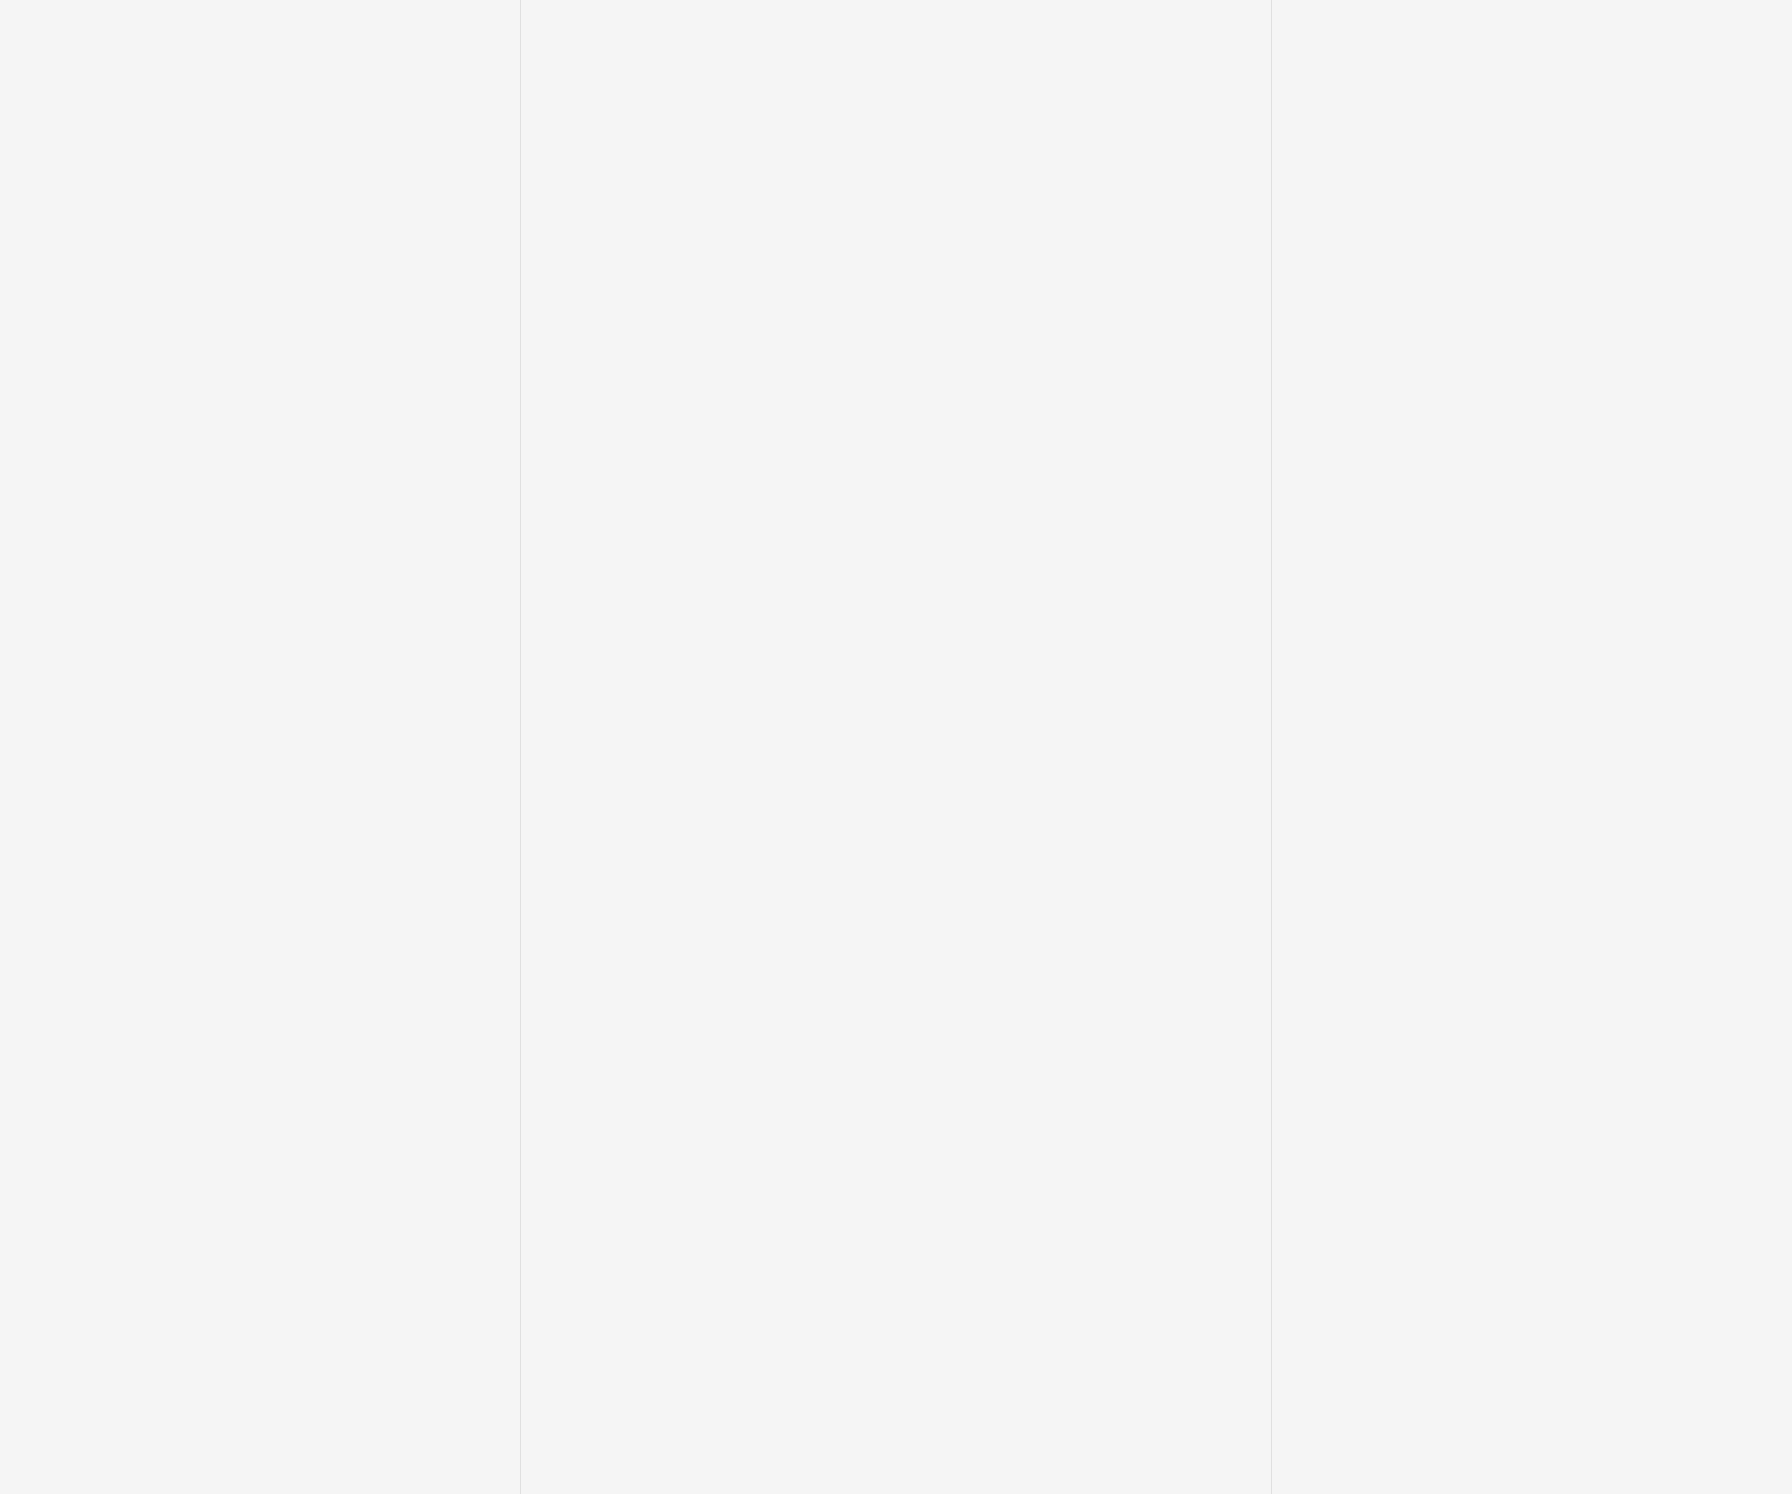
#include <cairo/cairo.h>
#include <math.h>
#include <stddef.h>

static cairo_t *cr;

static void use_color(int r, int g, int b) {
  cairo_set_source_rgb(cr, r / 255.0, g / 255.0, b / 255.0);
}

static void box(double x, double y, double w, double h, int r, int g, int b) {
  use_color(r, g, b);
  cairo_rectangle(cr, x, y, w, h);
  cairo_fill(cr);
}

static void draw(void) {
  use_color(245, 245, 245);
  cairo_paint(cr);
  box(1271, 0, 1, 1494, 224, 224, 224);
  box(520, 0, 1, 1494, 224, 224, 224);
}

int main(void) {
  cairo_surface_t *surface = cairo_image_surface_create(CAIRO_FORMAT_RGB24, 1792, 1494);
  cr = cairo_create(surface);
  cairo_font_options_t *options = cairo_font_options_create();
  cairo_font_options_set_hint_metrics(options, CAIRO_HINT_METRICS_OFF);
  cairo_font_options_set_hint_style(options, CAIRO_HINT_STYLE_NONE);
  cairo_set_font_options(cr, options);
  cairo_set_miter_limit(cr, 4);
  draw();
  cairo_surface_write_to_png(surface, "out.png");
  cairo_font_options_destroy(options);
  cairo_destroy(cr);
  cairo_surface_destroy(surface);
  return 0;
}
